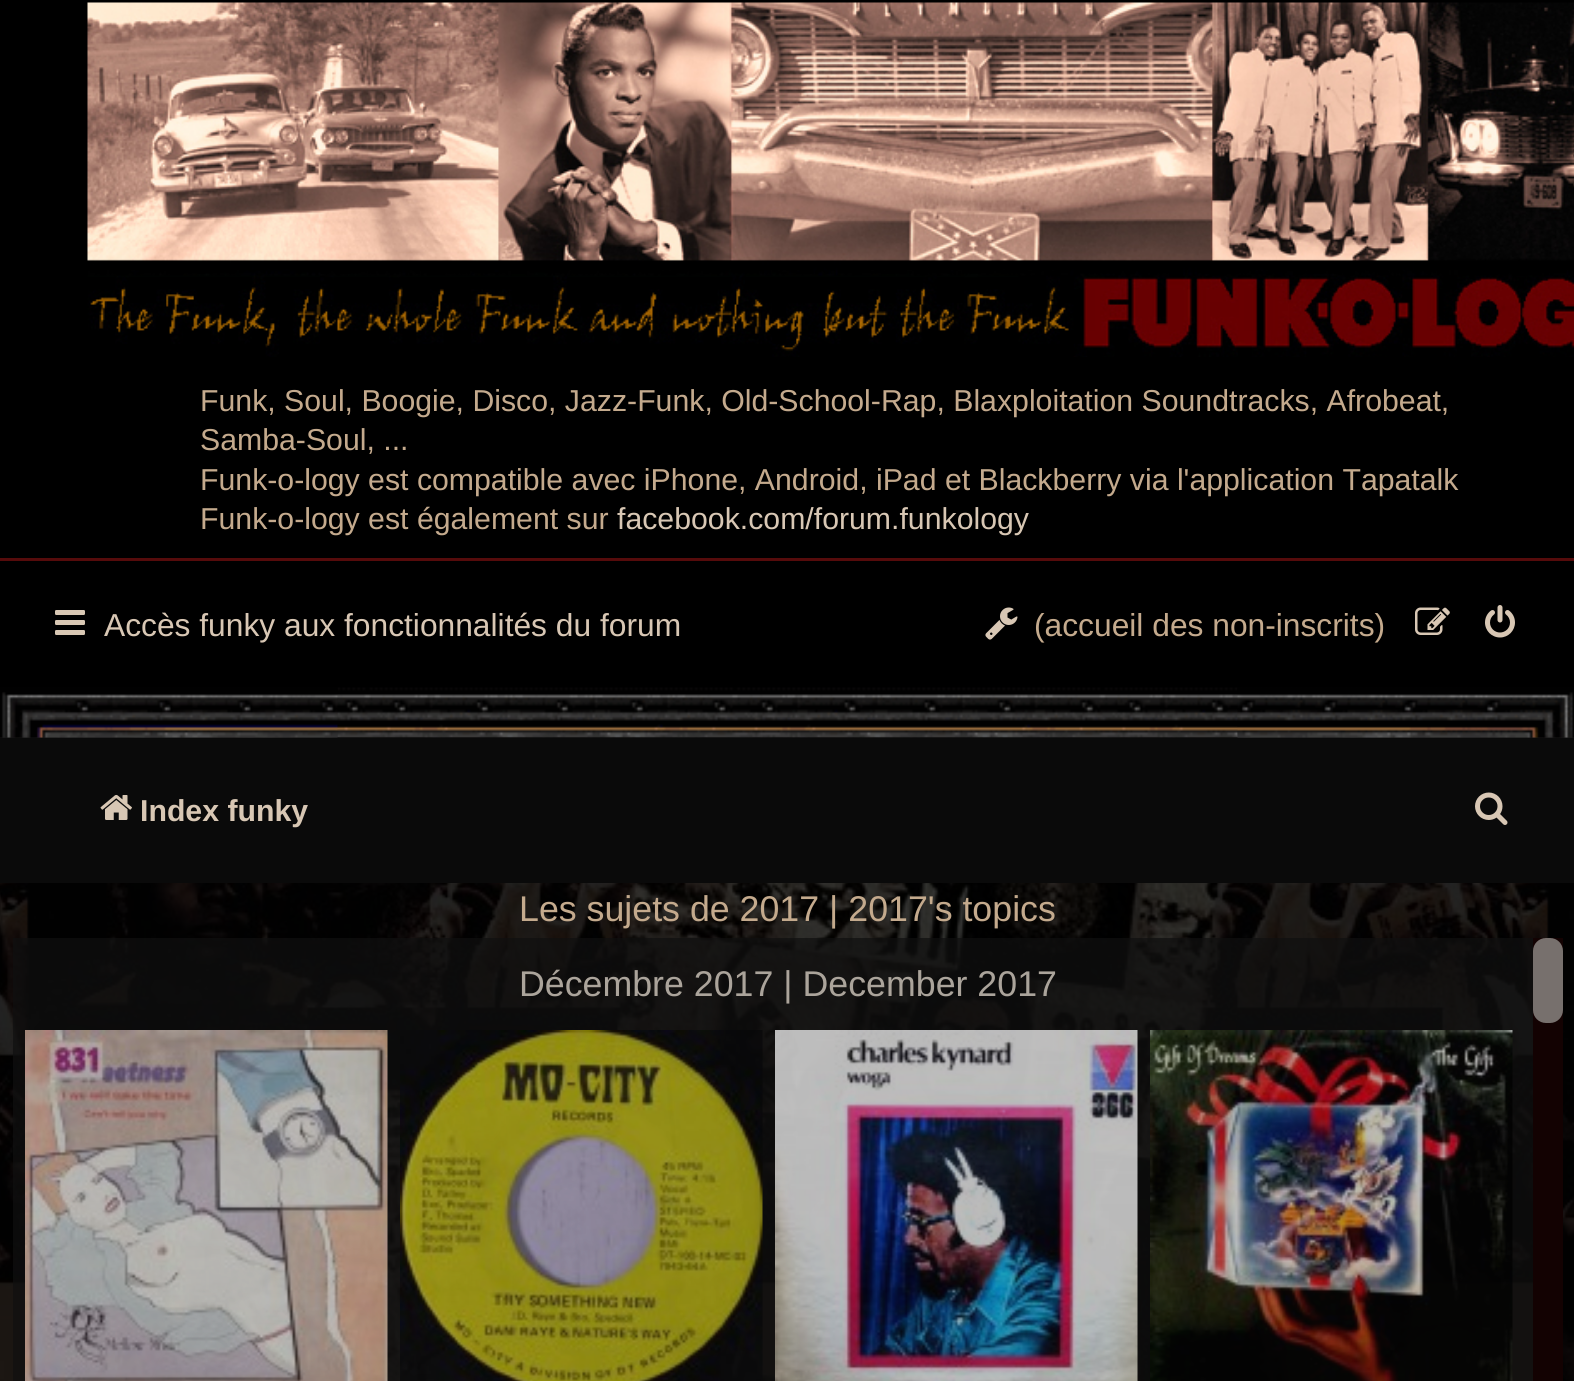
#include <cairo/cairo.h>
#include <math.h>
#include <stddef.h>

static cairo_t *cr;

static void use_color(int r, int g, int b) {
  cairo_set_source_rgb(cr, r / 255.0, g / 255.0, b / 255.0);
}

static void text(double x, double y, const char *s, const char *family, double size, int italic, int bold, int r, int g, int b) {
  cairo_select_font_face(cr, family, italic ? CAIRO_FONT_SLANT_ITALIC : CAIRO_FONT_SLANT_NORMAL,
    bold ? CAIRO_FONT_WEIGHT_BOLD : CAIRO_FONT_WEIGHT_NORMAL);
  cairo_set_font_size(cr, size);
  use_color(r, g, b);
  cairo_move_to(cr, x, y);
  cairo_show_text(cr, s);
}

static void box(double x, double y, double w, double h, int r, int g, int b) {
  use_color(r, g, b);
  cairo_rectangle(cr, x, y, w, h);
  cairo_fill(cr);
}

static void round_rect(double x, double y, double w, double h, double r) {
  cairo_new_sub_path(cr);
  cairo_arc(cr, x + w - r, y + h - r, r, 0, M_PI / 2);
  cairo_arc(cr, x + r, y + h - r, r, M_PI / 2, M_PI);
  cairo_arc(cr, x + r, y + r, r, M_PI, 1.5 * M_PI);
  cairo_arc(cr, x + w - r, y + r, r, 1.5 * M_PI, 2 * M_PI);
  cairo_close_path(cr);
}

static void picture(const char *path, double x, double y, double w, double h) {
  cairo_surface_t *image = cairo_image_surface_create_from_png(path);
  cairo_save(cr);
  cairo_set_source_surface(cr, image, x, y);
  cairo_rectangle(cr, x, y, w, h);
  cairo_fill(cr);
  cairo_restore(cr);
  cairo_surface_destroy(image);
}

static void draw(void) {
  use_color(255, 255, 255);
  cairo_paint(cr);
  picture("img_01.png", 0, 737, 1574, 644);
  cairo_set_source_rgba(cr, 0, 0, 0, 0.85);
  cairo_rectangle(cr, 0, 737, 1574, 1);
  cairo_fill(cr);
  box(0, 0, 1574, 558, 0, 0, 0);
  picture("img_02.png", 87, 2, 1487, 355);
  box(0, 561, 1574, 127, 0, 0, 0);
  box(0, 558, 1574, 3, 86, 11, 11);
  picture("img_03.png", 55, 610, 30, 25);
  picture("img_04.png", 985, 607, 33, 33);
  picture("img_05.png", 1415, 607, 35, 28);
  picture("img_06.png", 1485, 605, 30, 33);
  cairo_set_source_rgba(cr, 0, 0, 0, 0.9);
  cairo_rectangle(cr, 20, 737, 1522, 1);
  cairo_fill(cr);
  picture("img_07.png", 0, 687, 1574, 51);
  box(0, 738, 1574, 145, 10, 10, 10);
  picture("img_08.png", 100, 794, 32, 26);
  picture("img_09.png", 1475, 792, 33, 33);
  cairo_set_source_rgba(cr, 0, 0, 0, 0.8);
  cairo_rectangle(cr, 0, 883, 1574, 498);
  cairo_fill(cr);
  cairo_set_source_rgba(cr, 0.063, 0.063, 0.063, 0.72);
  cairo_rectangle(cr, 13, 938, 1520, 443);
  cairo_fill(cr);
  picture("img_10.png", 25, 1030, 363, 351);
  picture("img_11.png", 400, 1030, 363, 351);
  picture("img_12.png", 775, 1030, 363, 351);
  picture("img_13.png", 1150, 1030, 363, 351);
  box(1533, 938, 30, 443, 19, 2, 2);
  use_color(119, 112, 109);
  round_rect(1533, 938, 30, 85, 13);
  cairo_fill(cr);
  text(200, 411, "Funk, Soul, Boogie, Disco, Jazz-Funk, Old-School-Rap, Blaxploitation Soundtracks, Afrobeat,", "Liberation Sans", 30.25, 0, 0, 196, 170, 141);
  text(200, 450, "Samba-Soul, ...", "Liberation Sans", 30.25, 0, 0, 196, 170, 141);
  text(200, 490, "Funk-o-logy est compatible avec iPhone, Android, iPad et Blackberry via l'application Tapatalk", "Liberation Sans", 30.25, 0, 0, 196, 170, 141);
  text(200, 529, "Funk-o-logy est également sur", "Liberation Sans", 30.25, 0, 0, 196, 170, 141);
  text(617, 529, "facebook.com/forum.funkology", "Liberation Sans", 30.25, 0, 0, 216, 199, 180);
  text(104, 636, "Accès funky aux fonctionnalités du forum", "Liberation Sans", 31.75, 0, 0, 216, 199, 180);
  text(1034, 636, "(accueil des non-inscrits)", "Liberation Sans", 31.75, 0, 0, 196, 170, 141);
  text(140, 821, "Index funky", "Liberation Sans", 30.25, 0, 1, 216, 199, 180);
  text(519, 921, "Les sujets de 2017 | 2017's topics", "Liberation Sans", 35.75, 0, 0, 196, 170, 141);
  text(519, 996, "Décembre 2017 | December 2017", "Liberation Sans", 35.75, 0, 0, 171, 164, 155);
}

int main(void) {
  cairo_surface_t *surface = cairo_image_surface_create(CAIRO_FORMAT_RGB24, 1574, 1381);
  cr = cairo_create(surface);
  cairo_font_options_t *options = cairo_font_options_create();
  cairo_font_options_set_hint_metrics(options, CAIRO_HINT_METRICS_OFF);
  cairo_font_options_set_hint_style(options, CAIRO_HINT_STYLE_NONE);
  cairo_set_font_options(cr, options);
  cairo_set_miter_limit(cr, 4);
  draw();
  cairo_surface_write_to_png(surface, "out.png");
  cairo_font_options_destroy(options);
  cairo_destroy(cr);
  cairo_surface_destroy(surface);
  return 0;
}
